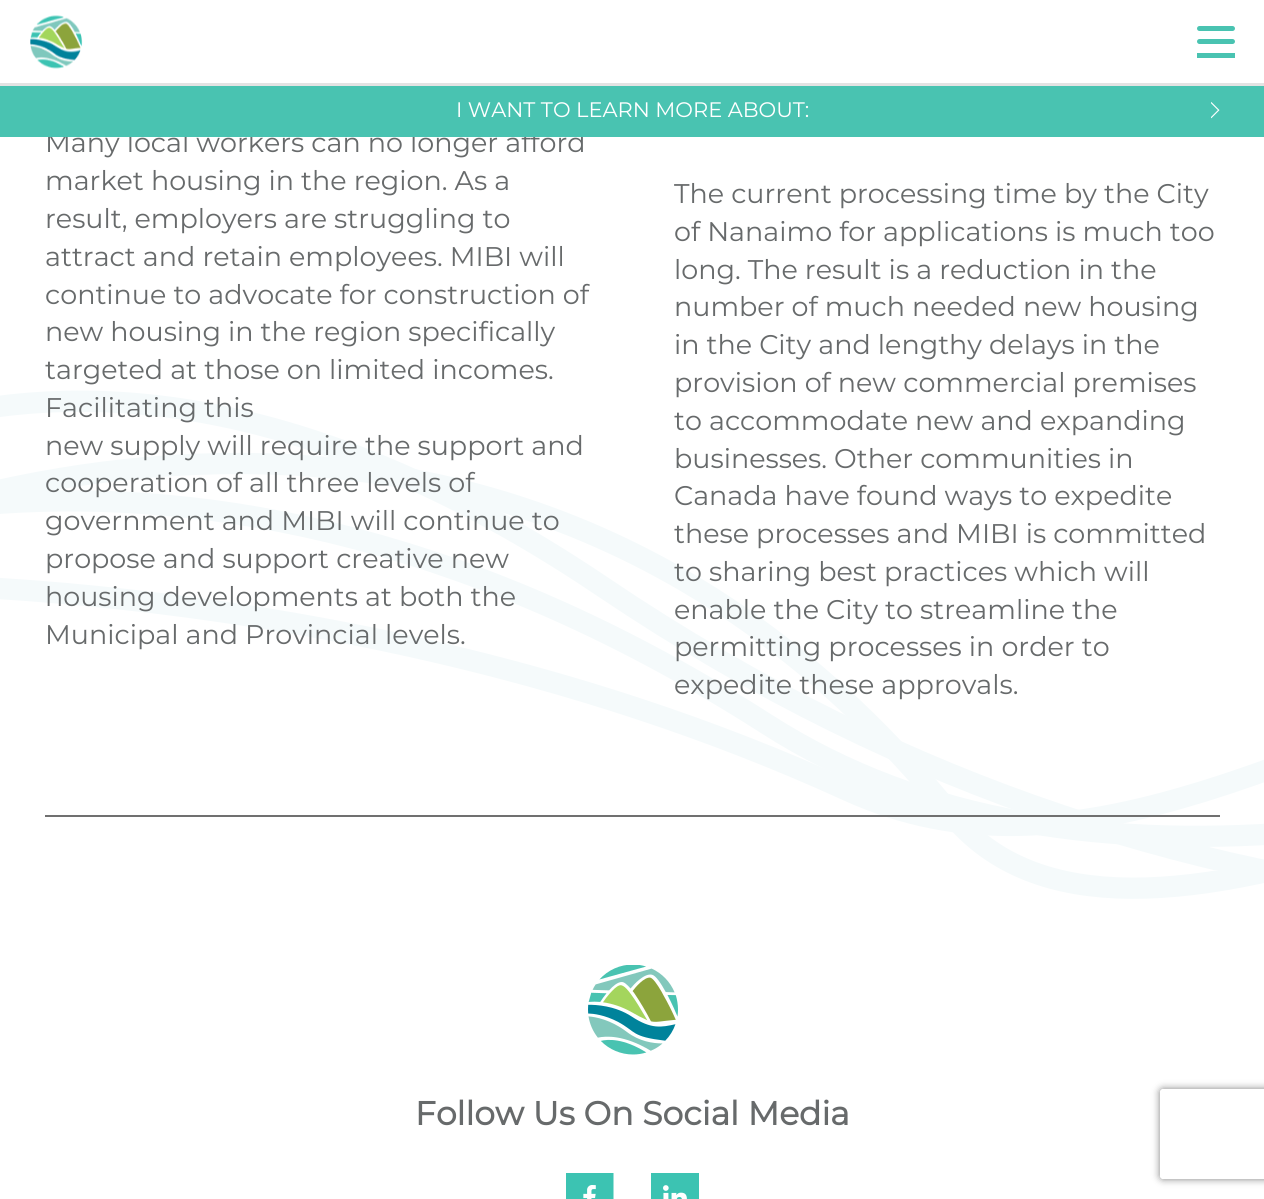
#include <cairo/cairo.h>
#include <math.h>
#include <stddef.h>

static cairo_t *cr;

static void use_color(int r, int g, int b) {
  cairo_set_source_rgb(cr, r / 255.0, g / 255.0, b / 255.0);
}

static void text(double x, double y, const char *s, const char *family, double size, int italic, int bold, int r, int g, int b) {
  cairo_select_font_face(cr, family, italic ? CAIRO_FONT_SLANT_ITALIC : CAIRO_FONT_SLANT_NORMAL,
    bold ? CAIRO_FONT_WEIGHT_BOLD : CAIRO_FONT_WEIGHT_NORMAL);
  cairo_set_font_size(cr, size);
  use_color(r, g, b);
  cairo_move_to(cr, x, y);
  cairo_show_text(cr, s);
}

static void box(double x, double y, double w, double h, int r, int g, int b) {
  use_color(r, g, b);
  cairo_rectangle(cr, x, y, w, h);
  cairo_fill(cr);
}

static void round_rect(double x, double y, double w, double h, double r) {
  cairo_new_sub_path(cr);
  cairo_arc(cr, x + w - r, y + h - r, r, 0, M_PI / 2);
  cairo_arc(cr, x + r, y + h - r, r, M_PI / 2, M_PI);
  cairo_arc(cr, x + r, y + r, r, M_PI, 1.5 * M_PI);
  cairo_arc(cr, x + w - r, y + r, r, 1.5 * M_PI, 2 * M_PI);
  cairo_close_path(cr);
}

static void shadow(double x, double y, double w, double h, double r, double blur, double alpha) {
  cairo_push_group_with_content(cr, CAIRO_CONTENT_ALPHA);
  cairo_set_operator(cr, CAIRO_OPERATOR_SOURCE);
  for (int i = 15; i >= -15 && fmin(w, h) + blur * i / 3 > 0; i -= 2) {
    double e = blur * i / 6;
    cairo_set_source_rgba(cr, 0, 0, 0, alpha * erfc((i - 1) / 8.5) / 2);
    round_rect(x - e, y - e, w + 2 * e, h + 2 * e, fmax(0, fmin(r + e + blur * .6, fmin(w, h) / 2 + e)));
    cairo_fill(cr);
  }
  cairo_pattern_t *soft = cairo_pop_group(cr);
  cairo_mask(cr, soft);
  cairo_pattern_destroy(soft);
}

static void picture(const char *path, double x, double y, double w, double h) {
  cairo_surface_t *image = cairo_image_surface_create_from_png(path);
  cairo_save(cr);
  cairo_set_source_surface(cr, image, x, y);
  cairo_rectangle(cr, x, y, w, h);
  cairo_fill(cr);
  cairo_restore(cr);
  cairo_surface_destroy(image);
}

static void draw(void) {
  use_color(255, 255, 255);
  cairo_paint(cr);
  box(0, 83, 1264, 3, 227, 227, 227);
  picture("img_01.png", 30, 15, 53, 54);
  use_color(73, 195, 177);
  round_rect(1197, 39, 38, 5, 2.5);
  cairo_fill(cr);
  round_rect(1197, 26, 38, 5, 2.5);
  cairo_fill(cr);
  box(1197, 53, 38, 5, 73, 195, 177);
  cairo_new_path(cr);
  cairo_move_to(cr, -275, 586.5);
  cairo_curve_to(cr, -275, 586.5, 447, 193, 950.5, 813.5);
  cairo_curve_to(cr, 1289, 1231, 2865.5, -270.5, 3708.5, 462.5);
  cairo_curve_to(cr, 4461.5, 1117, 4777.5, 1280.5, 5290, 670);
  cairo_curve_to(cr, 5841.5, 12.5, 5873.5, 771, 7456.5, 466);
  cairo_curve_to(cr, 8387.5, 286.5, 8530, 819, 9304.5, 752.5);
  cairo_curve_to(cr, 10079.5, 686, 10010.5, -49, 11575.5, 716.5);
  cairo_curve_to(cr, 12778, 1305, 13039, 1013.5, 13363, 968.5);
  cairo_curve_to(cr, 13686.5, 923.5, 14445, 387.5, 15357, 569);
  cairo_curve_to(cr, 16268.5, 750.5, 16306.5, 772.5, 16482.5, 862);
  cairo_curve_to(cr, 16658.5, 952, 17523.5, 696.5, 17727, 586.5);
  use_color(245, 250, 251);
  cairo_set_line_width(cr, 21.3);
  cairo_stroke(cr);
  cairo_new_path(cr);
  cairo_move_to(cr, -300.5, 586.5);
  cairo_curve_to(cr, -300.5, 586.5, 294.5, 537.5, 847.5, 790.5);
  cairo_curve_to(cr, 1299.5, 997, 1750.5, 205, 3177, 577);
  cairo_curve_to(cr, 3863.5, 756, 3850.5, 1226, 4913.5, 710);
  cairo_curve_to(cr, 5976.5, 194, 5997.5, 841, 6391, 743.5);
  cairo_curve_to(cr, 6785, 646, 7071, 225.5, 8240, 656.5);
  cairo_curve_to(cr, 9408.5, 1087.5, 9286, 620.5, 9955, 409);
  cairo_curve_to(cr, 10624.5, 198, 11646, 559.5, 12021, 783.5);
  cairo_curve_to(cr, 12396, 1007.5, 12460, 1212, 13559, 907);
  cairo_curve_to(cr, 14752.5, 576, 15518, 64.5, 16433, 885.5);
  cairo_curve_to(cr, 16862, 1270.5, 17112, 635, 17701.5, 586.5);
  cairo_stroke(cr);
  cairo_new_path(cr);
  cairo_move_to(cr, -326, 587.5);
  cairo_curve_to(cr, -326, 587.5, 137.5, 320.5, 766.5, 724);
  cairo_curve_to(cr, 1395.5, 1127.5, 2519.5, 302, 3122.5, 466);
  cairo_curve_to(cr, 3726, 629.5, 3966.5, 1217.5, 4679.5, 1024);
  cairo_curve_to(cr, 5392.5, 830, 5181.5, 409.5, 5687, 459);
  cairo_curve_to(cr, 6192, 509, 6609, 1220.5, 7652.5, 639.5);
  cairo_curve_to(cr, 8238, 314, 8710, 900, 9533, 702);
  cairo_curve_to(cr, 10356, 504.5, 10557.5, 173, 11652, 464.5);
  cairo_curve_to(cr, 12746.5, 756, 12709.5, 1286, 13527, 907);
  cairo_curve_to(cr, 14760.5, 335.5, 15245.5, 620.5, 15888.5, 788);
  cairo_curve_to(cr, 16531.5, 956, 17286, 806, 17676, 586.5);
  cairo_stroke(cr);
  picture("img_03.png", 0, 390, 1264, 480);
  box(45, 815, 1175, 2, 112, 112, 112);
  picture("img_04.png", 588, 965, 90, 90);
  picture("img_05.png", 566, 1173, 48, 26);
  picture("img_06.png", 651, 1173, 48, 26);
  cairo_save(cr);
  cairo_set_fill_rule(cr, CAIRO_FILL_RULE_EVEN_ODD);
  cairo_new_path(cr);
  cairo_move_to(cr, 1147, 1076);
  cairo_line_to(cr, 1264, 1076);
  cairo_line_to(cr, 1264, 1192);
  cairo_line_to(cr, 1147, 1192);
  cairo_close_path(cr);
  cairo_move_to(cr, 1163, 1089);
  cairo_line_to(cr, 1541, 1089);
  cairo_curve_to(cr, 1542.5, 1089, 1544, 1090.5, 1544, 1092);
  cairo_line_to(cr, 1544, 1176);
  cairo_curve_to(cr, 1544, 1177.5, 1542.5, 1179, 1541, 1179);
  cairo_line_to(cr, 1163, 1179);
  cairo_curve_to(cr, 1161.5, 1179, 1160, 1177.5, 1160, 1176);
  cairo_line_to(cr, 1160, 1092);
  cairo_curve_to(cr, 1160, 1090.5, 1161.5, 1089, 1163, 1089);
  cairo_close_path(cr);
  cairo_clip(cr);
  use_color(128, 128, 128);
  shadow(1160, 1089, 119, 90, 3, 4, 1);
  cairo_restore(cr);
  text(45, 152, "Many local workers can no longer afford", "Montserrat Thin", 27, 0, 0, 103, 106, 107);
  box(0, 86, 1264, 51, 73, 195, 177);
  text(456, 117, "I WANT TO LEARN MORE ABOUT:", "Montserrat Thin", 21, 0, 0, 255, 255, 255);
  picture("img_02.png", 1211, 102, 9, 17);
  text(45, 190, "market housing in the region. As a", "Montserrat Thin", 27, 0, 0, 103, 106, 107);
  text(45, 228, "result, employers are struggling to", "Montserrat Thin", 27, 0, 0, 103, 106, 107);
  text(45, 266, "attract and retain employees. MIBI will", "Montserrat Thin", 27, 0, 0, 103, 106, 107);
  text(45, 304, "continue to advocate for construction of", "Montserrat Thin", 27, 0, 0, 103, 106, 107);
  text(45, 341, "new housing in the region specifically", "Montserrat Thin", 27, 0, 0, 103, 106, 107);
  text(45, 379, "targeted at those on limited incomes.", "Montserrat Thin", 27, 0, 0, 103, 106, 107);
  text(45, 417, "Facilitating this", "Montserrat Thin", 27, 0, 0, 103, 106, 107);
  text(45, 455, "new supply will require the support and", "Montserrat Thin", 27, 0, 0, 103, 106, 107);
  text(45, 492, "cooperation of all three levels of", "Montserrat Thin", 27, 0, 0, 103, 106, 107);
  text(45, 530, "government and MIBI will continue to", "Montserrat Thin", 27, 0, 0, 103, 106, 107);
  text(45, 568, "propose and support creative new", "Montserrat Thin", 27, 0, 0, 103, 106, 107);
  text(45, 606, "housing developments at both the", "Montserrat Thin", 27, 0, 0, 103, 106, 107);
  text(45, 644, "Municipal and Provincial levels.", "Montserrat Thin", 27, 0, 0, 103, 106, 107);
  text(674, 203, "The current processing time by the City", "Montserrat Thin", 27, 0, 0, 103, 106, 107);
  text(674, 241, "of Nanaimo for applications is much too", "Montserrat Thin", 27, 0, 0, 103, 106, 107);
  text(674, 279, "long. The result is a reduction in the", "Montserrat Thin", 27, 0, 0, 103, 106, 107);
  text(674, 316, "number of much needed new housing", "Montserrat Thin", 27, 0, 0, 103, 106, 107);
  text(674, 354, "in the City and lengthy delays in the", "Montserrat Thin", 27, 0, 0, 103, 106, 107);
  text(674, 392, "provision of new commercial premises", "Montserrat Thin", 27, 0, 0, 103, 106, 107);
  text(674, 430, "to accommodate new and expanding", "Montserrat Thin", 27, 0, 0, 103, 106, 107);
  text(674, 468, "businesses. Other communities in", "Montserrat Thin", 27, 0, 0, 103, 106, 107);
  text(674, 505, "Canada have found ways to expedite", "Montserrat Thin", 27, 0, 0, 103, 106, 107);
  text(674, 543, "these processes and MIBI is committed", "Montserrat Thin", 27, 0, 0, 103, 106, 107);
  text(674, 581, "to sharing best practices which will", "Montserrat Thin", 27, 0, 0, 103, 106, 107);
  text(674, 619, "enable the City to streamline the", "Montserrat Thin", 27, 0, 0, 103, 106, 107);
  text(674, 656, "permitting processes in order to", "Montserrat Thin", 27, 0, 0, 103, 106, 107);
  text(674, 694, "expedite these approvals.", "Montserrat Thin", 27, 0, 0, 103, 106, 107);
  text(415, 1125, "Follow Us On Social Media", "Montserrat", 33, 0, 1, 103, 106, 107);
}

int main(void) {
  cairo_surface_t *surface = cairo_image_surface_create(CAIRO_FORMAT_RGB24, 1264, 1199);
  cr = cairo_create(surface);
  cairo_font_options_t *options = cairo_font_options_create();
  cairo_font_options_set_hint_metrics(options, CAIRO_HINT_METRICS_OFF);
  cairo_font_options_set_hint_style(options, CAIRO_HINT_STYLE_NONE);
  cairo_set_font_options(cr, options);
  cairo_set_miter_limit(cr, 4);
  draw();
  cairo_surface_write_to_png(surface, "out.png");
  cairo_font_options_destroy(options);
  cairo_destroy(cr);
  cairo_surface_destroy(surface);
  return 0;
}
